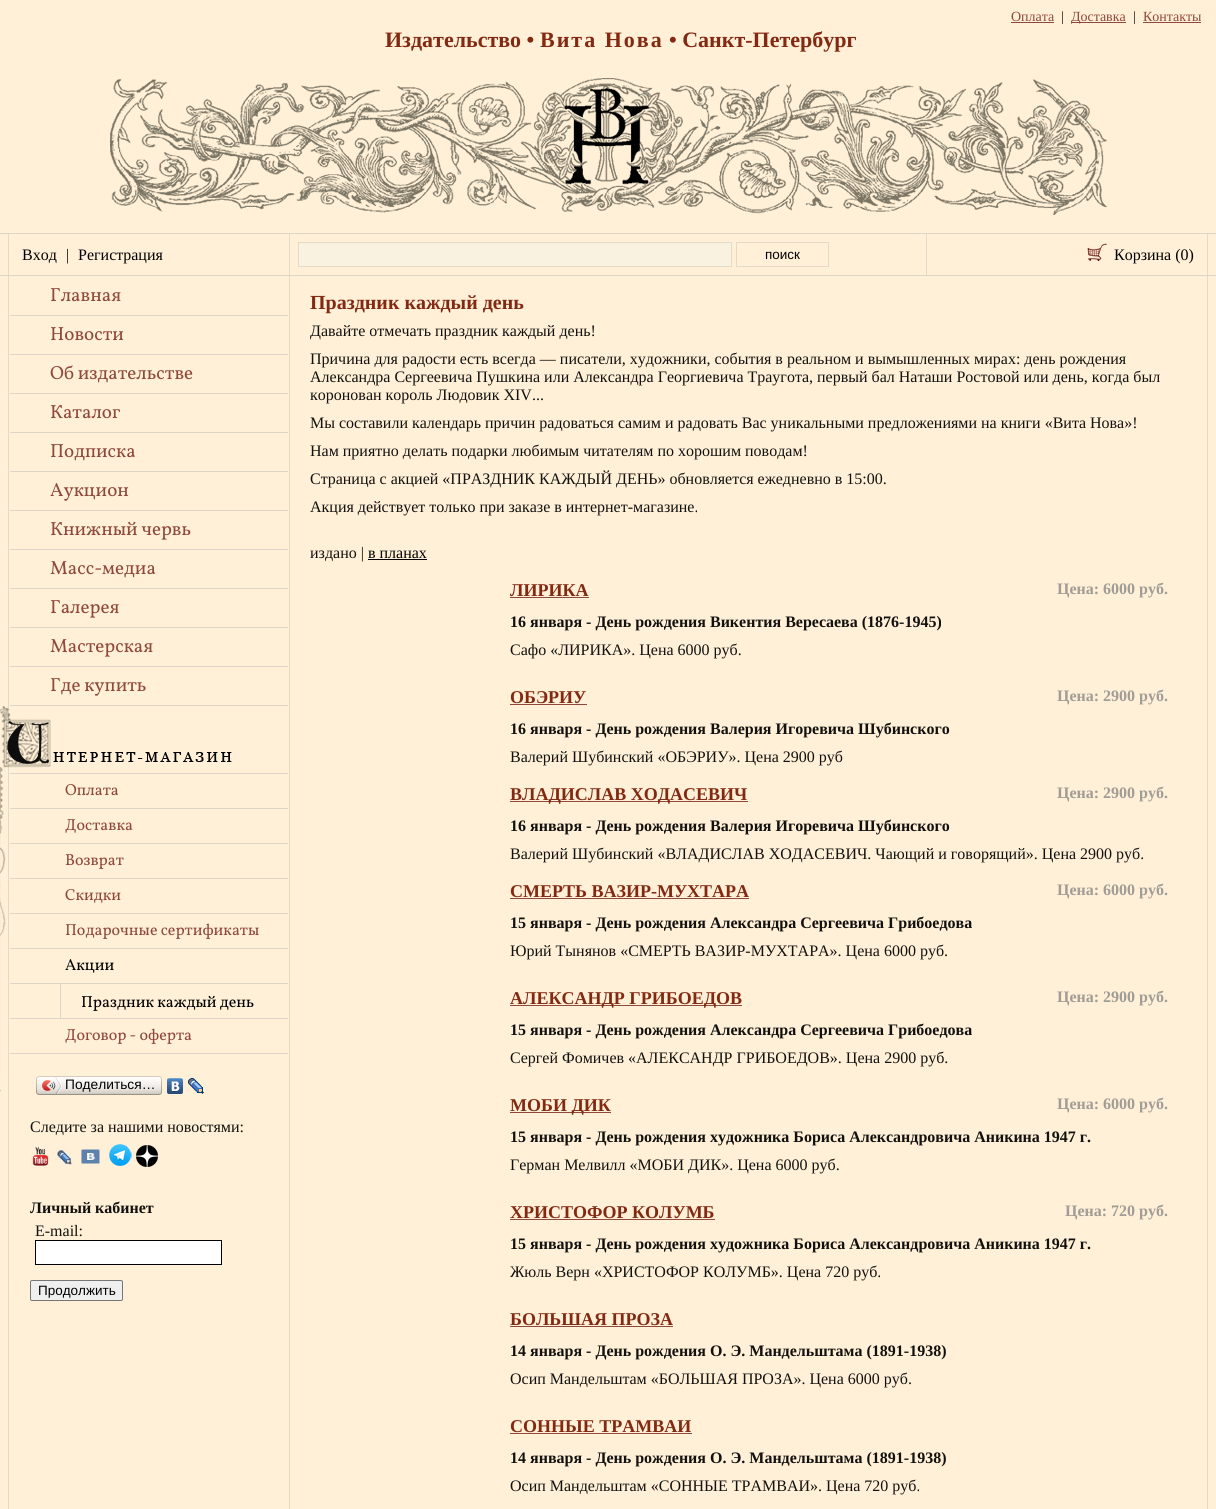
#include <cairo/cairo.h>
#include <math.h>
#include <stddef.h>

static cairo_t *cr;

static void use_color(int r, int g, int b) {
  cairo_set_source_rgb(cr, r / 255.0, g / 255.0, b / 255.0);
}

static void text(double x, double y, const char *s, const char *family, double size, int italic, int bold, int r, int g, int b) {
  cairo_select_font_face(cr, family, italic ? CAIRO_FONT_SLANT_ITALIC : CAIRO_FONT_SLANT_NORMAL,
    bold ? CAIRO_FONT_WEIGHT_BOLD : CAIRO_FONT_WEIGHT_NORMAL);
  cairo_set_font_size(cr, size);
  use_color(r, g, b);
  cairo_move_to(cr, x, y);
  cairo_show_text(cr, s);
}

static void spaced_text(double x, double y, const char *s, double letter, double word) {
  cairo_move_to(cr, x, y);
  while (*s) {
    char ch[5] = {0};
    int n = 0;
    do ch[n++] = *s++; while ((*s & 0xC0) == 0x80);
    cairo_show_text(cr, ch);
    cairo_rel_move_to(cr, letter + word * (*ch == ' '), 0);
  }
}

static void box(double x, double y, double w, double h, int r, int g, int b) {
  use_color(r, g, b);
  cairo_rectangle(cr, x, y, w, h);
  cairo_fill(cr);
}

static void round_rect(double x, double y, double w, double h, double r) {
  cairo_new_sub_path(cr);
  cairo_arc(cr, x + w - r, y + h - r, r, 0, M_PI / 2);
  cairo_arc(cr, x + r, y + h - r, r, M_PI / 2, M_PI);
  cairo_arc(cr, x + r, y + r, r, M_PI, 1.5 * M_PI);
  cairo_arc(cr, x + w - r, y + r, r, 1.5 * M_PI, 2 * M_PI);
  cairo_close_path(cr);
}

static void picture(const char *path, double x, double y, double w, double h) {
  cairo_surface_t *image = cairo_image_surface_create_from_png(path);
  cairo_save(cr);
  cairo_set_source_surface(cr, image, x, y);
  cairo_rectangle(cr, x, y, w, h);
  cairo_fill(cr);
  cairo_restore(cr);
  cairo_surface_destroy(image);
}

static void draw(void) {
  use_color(255, 240, 215);
  cairo_paint(cr);
  box(1011, 22, 43, 1, 143, 72, 57);
  box(1071, 22, 55, 1, 143, 72, 57);
  box(1143, 22, 58, 1, 143, 72, 57);
  picture("img_01.png", 110, 78, 997, 137);
  box(0, 233, 1216, 1, 220, 213, 200);
  box(0, 275, 1216, 1, 220, 213, 200);
  box(289, 234, 1, 41, 227, 218, 201);
  box(8, 234, 1, 41, 227, 218, 201);
  use_color(249, 242, 225);
  cairo_rectangle(cr, 298.5, 242.5, 433, 24);
  cairo_fill_preserve(cr);
  use_color(227, 218, 201);
  cairo_set_line_width(cr, 1);
  cairo_stroke(cr);
  cairo_rectangle(cr, 736.5, 242.5, 92, 24);
  cairo_stroke(cr);
  box(1207, 234, 1, 41, 227, 218, 201);
  box(926, 234, 1, 41, 227, 218, 201);
  picture("img_02.png", 1087, 243, 20, 19);
  box(1207, 276, 1, 1233, 227, 218, 201);
  box(289, 276, 1, 1233, 227, 218, 201);
  box(8, 276, 1, 1233, 227, 218, 201);
  box(10, 315, 278, 1, 220, 213, 200);
  box(10, 354, 278, 1, 220, 213, 200);
  box(10, 393, 278, 1, 220, 213, 200);
  box(10, 432, 278, 1, 220, 213, 200);
  box(10, 471, 278, 1, 220, 213, 200);
  box(10, 510, 278, 1, 220, 213, 200);
  box(10, 549, 278, 1, 220, 213, 200);
  box(10, 588, 278, 1, 220, 213, 200);
  box(10, 627, 278, 1, 220, 213, 200);
  box(10, 666, 278, 1, 220, 213, 200);
  box(10, 705, 278, 1, 220, 213, 200);
  box(10, 1018, 278, 1, 220, 213, 200);
  picture("img_04.png", 0, 767, 41, 325);
  box(10, 773, 278, 1, 220, 213, 200);
  picture("img_03.png", 0, 706, 232, 61);
  box(10, 808, 278, 1, 220, 213, 200);
  box(10, 843, 278, 1, 220, 213, 200);
  box(10, 878, 278, 1, 220, 213, 200);
  box(10, 913, 278, 1, 220, 213, 200);
  box(10, 948, 278, 1, 220, 213, 200);
  box(10, 983, 278, 1, 220, 213, 200);
  box(60, 984, 1, 34, 220, 213, 200);
  box(10, 1053, 278, 1, 220, 213, 200);
  picture("img_05.png", 39, 1076, 120, 19);
  picture("img_06.png", 36, 1076, 3, 19);
  picture("img_07.png", 42, 1077, 20, 17);
  picture("img_08.png", 159, 1076, 3, 19);
  picture("img_09.png", 167, 1078, 16, 16);
  picture("img_10.png", 188, 1078, 16, 16);
  picture("img_11.png", 32, 1147, 17, 19);
  picture("img_12.png", 55, 1147, 19, 20);
  picture("img_13.png", 81, 1149, 19, 15);
  picture("img_14.png", 109, 1144, 23, 22);
  picture("img_15.png", 136, 1145, 22, 22);
  use_color(255, 255, 255);
  cairo_rectangle(cr, 35.5, 1240.5, 186, 24);
  cairo_fill_preserve(cr);
  use_color(0, 0, 0);
  cairo_stroke(cr);
  use_color(239, 239, 239);
  round_rect(30.5, 1280.5, 92, 20, 1.5);
  cairo_fill_preserve(cr);
  use_color(118, 118, 118);
  cairo_stroke(cr);
  box(368, 559, 59, 1, 0, 0, 0);
  box(510, 597, 79, 1, 143, 72, 57);
  box(510, 704, 77, 1, 143, 72, 57);
  box(510, 801, 238, 1, 143, 72, 57);
  box(510, 898, 239, 1, 143, 72, 57);
  box(510, 1005, 232, 1, 143, 72, 57);
  box(510, 1112, 101, 1, 143, 72, 57);
  box(510, 1219, 205, 1, 143, 72, 57);
  box(510, 1326, 163, 1, 143, 72, 57);
  box(510, 1433, 182, 1, 143, 72, 57);
  text(1011, 21, "Оплата", "Liberation Serif", 14, 0, 0, 143, 72, 57);
  text(1061, 21, "|", "Liberation Serif", 14, 0, 0, 18, 17, 15);
  text(1071, 21, "Доставка", "Liberation Serif", 14, 0, 0, 143, 72, 57);
  text(1133, 21, "|", "Liberation Serif", 14, 0, 0, 18, 17, 15);
  text(1143, 21, "Контакты", "Liberation Serif", 14, 0, 0, 143, 72, 57);
  text(385, 47, "Издательство •", "Liberation Serif", 22, 0, 1, 131, 41, 17);
  spaced_text(540, 47, "Вита Нова", 2, 0);
  text(669, 47, "• Санкт-Петербург", "Liberation Serif", 22, 0, 1, 131, 41, 17);
  text(22, 260, "Вход", "Liberation Serif", 16, 0, 0, 0, 0, 0);
  text(66, 260, "|", "Liberation Serif", 16, 0, 0, 18, 17, 15);
  text(78, 260, "Регистрация", "Liberation Serif", 16, 0, 0, 0, 0, 0);
  text(765, 259, "поиск", "Liberation Sans", 13.5, 0, 0, 0, 0, 0);
  text(1114, 260, "Корзина (0)", "Liberation Serif", 16, 0, 0, 0, 0, 0);
  text(50, 301, "Главная", "Vollkorn", 19, 0, 0, 143, 72, 57);
  text(50, 340, "Новости", "Vollkorn", 19, 0, 0, 143, 72, 57);
  text(50, 379, "Об издательстве", "Vollkorn", 19, 0, 0, 143, 72, 57);
  text(50, 418, "Каталог", "Vollkorn", 19, 0, 0, 143, 72, 57);
  text(50, 457, "Подписка", "Vollkorn", 19, 0, 0, 143, 72, 57);
  text(50, 496, "Аукцион", "Vollkorn", 19, 0, 0, 143, 72, 57);
  text(50, 535, "Книжный червь", "Vollkorn", 19, 0, 0, 143, 72, 57);
  text(50, 574, "Масс-медиа", "Vollkorn", 19, 0, 0, 143, 72, 57);
  text(50, 613, "Галерея", "Vollkorn", 19, 0, 0, 143, 72, 57);
  text(50, 652, "Мастерская", "Vollkorn", 19, 0, 0, 143, 72, 57);
  text(50, 691, "Где купить", "Vollkorn", 19, 0, 0, 143, 72, 57);
  text(65, 795, "Оплата", "Vollkorn", 16, 0, 0, 143, 72, 57);
  text(65, 830, "Доставка", "Vollkorn", 16, 0, 0, 143, 72, 57);
  text(65, 865, "Возврат", "Vollkorn", 16, 0, 0, 143, 72, 57);
  text(65, 900, "Скидки", "Vollkorn", 16, 0, 0, 143, 72, 57);
  text(65, 935, "Подарочные сертификаты", "Vollkorn", 16, 0, 0, 143, 72, 57);
  text(65, 970, "Акции", "Vollkorn", 16, 0, 0, 0, 0, 0);
  text(81, 1007, "Праздник каждый день", "Vollkorn", 16, 0, 0, 0, 0, 0);
  text(65, 1040, "Договор - оферта", "Vollkorn", 16, 0, 0, 143, 72, 57);
  text(65, 1089, "Поделиться…", "Liberation Sans", 13.75, 0, 0, 0, 0, 0);
  text(30, 1132, "Следите за нашими новостями:", "Liberation Serif", 16, 0, 0, 18, 17, 15);
  text(30, 1213, "Личный кабинет", "Liberation Serif", 16, 0, 1, 18, 17, 15);
  text(35, 1236, "E-mail:", "Liberation Serif", 16, 0, 0, 18, 17, 15);
  text(38, 1295, "Продолжить", "Liberation Sans", 13.5, 0, 0, 0, 0, 0);
  text(310, 309, "Праздник каждый день", "Liberation Serif", 20, 0, 1, 131, 41, 17);
  text(310, 336, "Давайте отмечать праздник каждый день!", "Liberation Serif", 16, 0, 0, 18, 17, 15);
  text(310, 364, "Причина для радости есть всегда — писатели, художники, события в реальном и вымышленных мирах: день рождения", "Liberation Serif", 16, 0, 0, 18, 17, 15);
  text(310, 382, "Александра Сергеевича Пушкина или Александра Георгиевича Траугота, первый бал Наташи Ростовой или день, когда был", "Liberation Serif", 16, 0, 0, 18, 17, 15);
  text(310, 400, "коронован король Людовик XIV...", "Liberation Serif", 16, 0, 0, 18, 17, 15);
  text(310, 428, "Мы составили календарь причин радоваться самим и радовать Вас уникальными предложениями на книги «Вита Нова»!", "Liberation Serif", 16, 0, 0, 18, 17, 15);
  text(310, 456, "Нам приятно делать подарки любимым читателям по хорошим поводам!", "Liberation Serif", 16, 0, 0, 18, 17, 15);
  text(310, 484, "Страница с акцией «ПРАЗДНИК КАЖДЫЙ ДЕНЬ» обновляется ежедневно в 15:00.", "Liberation Serif", 16, 0, 0, 18, 17, 15);
  text(310, 512, "Акция действует только при заказе в интернет-магазине.", "Liberation Serif", 16, 0, 0, 18, 17, 15);
  text(310, 558, "издано |", "Liberation Serif", 16, 0, 0, 18, 17, 15);
  text(368, 558, "в планах", "Liberation Serif", 16, 0, 0, 0, 0, 0);
  text(510, 596, "ЛИРИКА", "Liberation Serif", 18, 0, 1, 131, 41, 17);
  text(1057, 594, "Цена: 6000 руб.", "Liberation Serif", 16, 0, 1, 161, 156, 150);
  text(510, 627, "16 января - День рождения Викентия Вересаева (1876-1945)", "Liberation Serif", 16, 0, 1, 18, 17, 15);
  text(510, 655, "Сафо «ЛИРИКА». Цена 6000 руб.", "Liberation Serif", 16, 0, 0, 18, 17, 15);
  text(510, 703, "ОБЭРИУ", "Liberation Serif", 18, 0, 1, 131, 41, 17);
  text(1057, 701, "Цена: 2900 руб.", "Liberation Serif", 16, 0, 1, 161, 156, 150);
  text(510, 734, "16 января - День рождения Валерия Игоревича Шубинского", "Liberation Serif", 16, 0, 1, 18, 17, 15);
  text(510, 762, "Валерий Шубинский «ОБЭРИУ». Цена 2900 руб", "Liberation Serif", 16, 0, 0, 18, 17, 15);
  text(510, 800, "ВЛАДИСЛАВ ХОДАСЕВИЧ", "Liberation Serif", 18, 0, 1, 131, 41, 17);
  text(1057, 798, "Цена: 2900 руб.", "Liberation Serif", 16, 0, 1, 161, 156, 150);
  text(510, 831, "16 января - День рождения Валерия Игоревича Шубинского", "Liberation Serif", 16, 0, 1, 18, 17, 15);
  text(510, 859, "Валерий Шубинский «ВЛАДИСЛАВ ХОДАСЕВИЧ. Чающий и говорящий». Цена 2900 руб.", "Liberation Serif", 16, 0, 0, 18, 17, 15);
  text(510, 897, "СМЕРТЬ ВАЗИР-МУХТАРА", "Liberation Serif", 18, 0, 1, 131, 41, 17);
  text(1057, 895, "Цена: 6000 руб.", "Liberation Serif", 16, 0, 1, 161, 156, 150);
  text(510, 928, "15 января - День рождения Александра Сергеевича Грибоедова", "Liberation Serif", 16, 0, 1, 18, 17, 15);
  text(510, 956, "Юрий Тынянов «СМЕРТЬ ВАЗИР-МУХТАРА». Цена 6000 руб.", "Liberation Serif", 16, 0, 0, 18, 17, 15);
  text(510, 1004, "АЛЕКСАНДР ГРИБОЕДОВ", "Liberation Serif", 18, 0, 1, 131, 41, 17);
  text(1057, 1002, "Цена: 2900 руб.", "Liberation Serif", 16, 0, 1, 161, 156, 150);
  text(510, 1035, "15 января - День рождения Александра Сергеевича Грибоедова", "Liberation Serif", 16, 0, 1, 18, 17, 15);
  text(510, 1063, "Сергей Фомичев «АЛЕКСАНДР ГРИБОЕДОВ». Цена 2900 руб.", "Liberation Serif", 16, 0, 0, 18, 17, 15);
  text(510, 1111, "МОБИ ДИК", "Liberation Serif", 18, 0, 1, 131, 41, 17);
  text(1057, 1109, "Цена: 6000 руб.", "Liberation Serif", 16, 0, 1, 161, 156, 150);
  text(510, 1142, "15 января - День рождения художника Бориса Александровича Аникина 1947 г.", "Liberation Serif", 16, 0, 1, 18, 17, 15);
  text(510, 1170, "Герман Мелвилл «МОБИ ДИК». Цена 6000 руб.", "Liberation Serif", 16, 0, 0, 18, 17, 15);
  text(510, 1218, "ХРИСТОФОР КОЛУМБ", "Liberation Serif", 18, 0, 1, 131, 41, 17);
  text(1065, 1216, "Цена: 720 руб.", "Liberation Serif", 16, 0, 1, 161, 156, 150);
  text(510, 1249, "15 января - День рождения художника Бориса Александровича Аникина 1947 г.", "Liberation Serif", 16, 0, 1, 18, 17, 15);
  text(510, 1277, "Жюль Верн «ХРИСТОФОР КОЛУМБ». Цена 720 руб.", "Liberation Serif", 16, 0, 0, 18, 17, 15);
  text(510, 1325, "БОЛЬШАЯ ПРОЗА", "Liberation Serif", 18, 0, 1, 131, 41, 17);
  text(510, 1356, "14 января - День рождения О. Э. Мандельштама (1891-1938)", "Liberation Serif", 16, 0, 1, 18, 17, 15);
  text(510, 1384, "Осип Мандельштам «БОЛЬШАЯ ПРОЗА». Цена 6000 руб.", "Liberation Serif", 16, 0, 0, 18, 17, 15);
  text(510, 1432, "СОННЫЕ ТРАМВАИ", "Liberation Serif", 18, 0, 1, 131, 41, 17);
  text(510, 1463, "14 января - День рождения О. Э. Мандельштама (1891-1938)", "Liberation Serif", 16, 0, 1, 18, 17, 15);
  text(510, 1491, "Осип Мандельштам «СОННЫЕ ТРАМВАИ». Цена 720 руб.", "Liberation Serif", 16, 0, 0, 18, 17, 15);
}

int main(void) {
  cairo_surface_t *surface = cairo_image_surface_create(CAIRO_FORMAT_RGB24, 1216, 1509);
  cr = cairo_create(surface);
  cairo_font_options_t *options = cairo_font_options_create();
  cairo_font_options_set_hint_metrics(options, CAIRO_HINT_METRICS_OFF);
  cairo_font_options_set_hint_style(options, CAIRO_HINT_STYLE_NONE);
  cairo_set_font_options(cr, options);
  cairo_set_miter_limit(cr, 4);
  draw();
  cairo_surface_write_to_png(surface, "out.png");
  cairo_font_options_destroy(options);
  cairo_destroy(cr);
  cairo_surface_destroy(surface);
  return 0;
}
